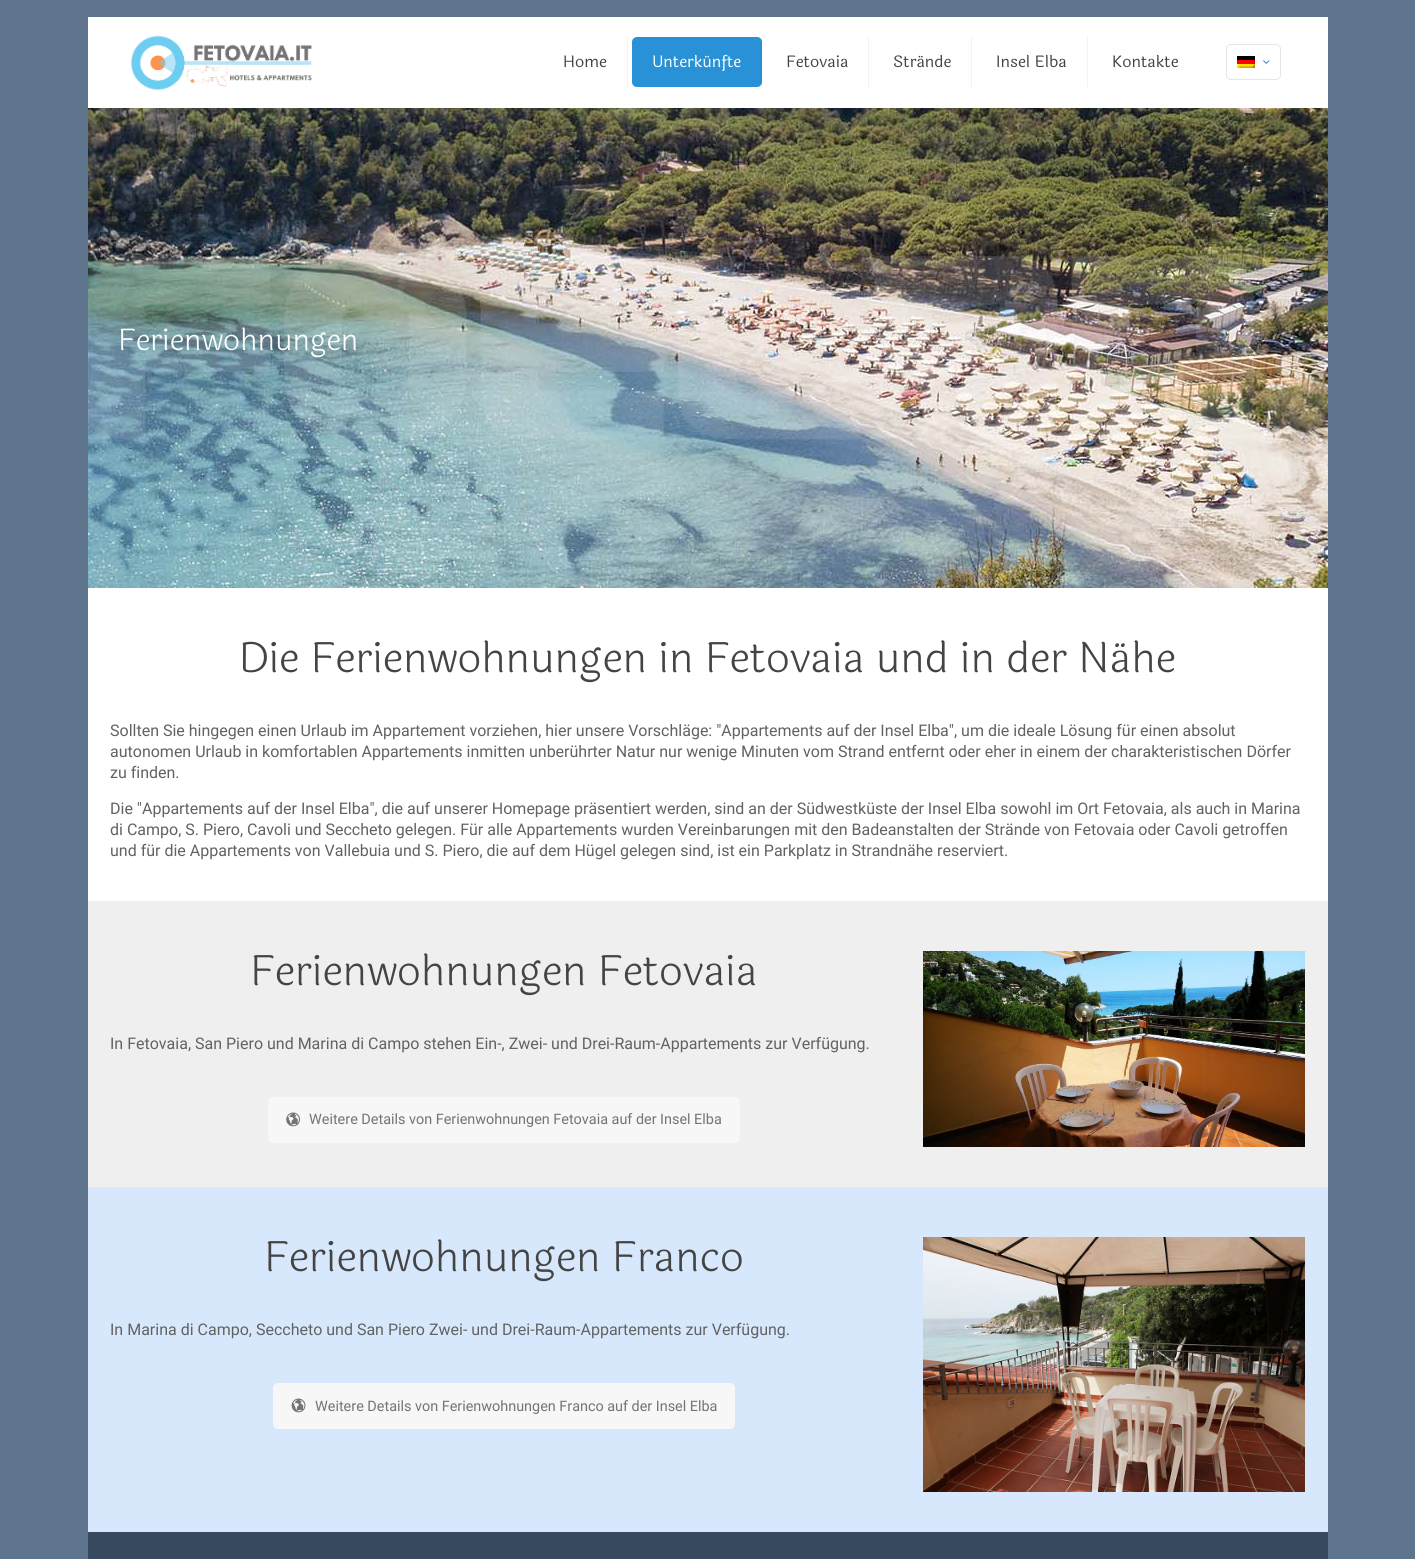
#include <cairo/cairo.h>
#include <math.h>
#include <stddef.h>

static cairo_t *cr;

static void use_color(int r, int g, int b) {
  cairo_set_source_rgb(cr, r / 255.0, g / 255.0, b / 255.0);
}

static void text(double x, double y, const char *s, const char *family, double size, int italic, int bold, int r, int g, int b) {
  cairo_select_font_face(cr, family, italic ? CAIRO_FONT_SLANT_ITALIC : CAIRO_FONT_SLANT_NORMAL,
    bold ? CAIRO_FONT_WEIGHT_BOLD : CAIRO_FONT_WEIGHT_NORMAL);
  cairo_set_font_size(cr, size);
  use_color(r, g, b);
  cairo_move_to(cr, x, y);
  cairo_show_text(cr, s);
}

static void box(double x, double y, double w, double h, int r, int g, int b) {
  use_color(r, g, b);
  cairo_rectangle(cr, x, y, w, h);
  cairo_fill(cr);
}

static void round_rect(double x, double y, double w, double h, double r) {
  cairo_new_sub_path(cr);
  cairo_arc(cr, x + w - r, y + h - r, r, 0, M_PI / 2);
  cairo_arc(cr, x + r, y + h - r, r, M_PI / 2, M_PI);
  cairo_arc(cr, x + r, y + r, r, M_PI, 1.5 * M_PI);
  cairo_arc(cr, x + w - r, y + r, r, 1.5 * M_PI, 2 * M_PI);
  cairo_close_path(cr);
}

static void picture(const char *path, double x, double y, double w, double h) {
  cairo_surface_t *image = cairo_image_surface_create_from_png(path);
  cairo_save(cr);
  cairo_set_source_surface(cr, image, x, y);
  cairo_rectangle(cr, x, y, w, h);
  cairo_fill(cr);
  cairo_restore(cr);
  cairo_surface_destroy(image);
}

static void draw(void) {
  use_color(95, 117, 141);
  cairo_paint(cr);
  box(88, 588, 1240, 313, 255, 255, 255);
  box(88, 17, 1240, 91, 255, 255, 255);
  picture("img_01.png", 130, 35, 183, 55);
  box(627, 37, 1, 50, 242, 242, 242);
  use_color(41, 145, 214);
  round_rect(632, 37, 130, 50, 5);
  cairo_fill(cr);
  cairo_set_source_rgba(cr, 0, 0, 0, 0.05);
  cairo_rectangle(cr, 761, 37, 1, 50);
  cairo_fill(cr);
  box(868, 37, 1, 50, 242, 242, 242);
  box(971, 37, 1, 50, 242, 242, 242);
  box(1087, 37, 1, 50, 242, 242, 242);
  round_rect(1226.5, 44.5, 54, 35, 4.5);
  use_color(230, 230, 230);
  cairo_set_line_width(cr, 1);
  cairo_stroke(cr);
  picture("img_02.png", 1237, 56, 18, 12);
  picture("img_03.png", 1263, 60, 7, 4);
  picture("img_04.png", 88, 108, 1240, 480);
  box(88, 901, 1240, 286, 239, 239, 239);
  use_color(247, 247, 247);
  round_rect(268, 1097, 472, 46, 5);
  cairo_fill(cr);
  picture("img_05.png", 286, 1112, 14, 15);
  picture("img_06.png", 923, 951, 382, 196);
  box(88, 1187, 1240, 345, 216, 232, 252);
  use_color(247, 247, 247);
  round_rect(273, 1383, 462, 46, 5);
  cairo_fill(cr);
  picture("img_07.png", 291, 1398, 15, 15);
  picture("img_08.png", 923, 1237, 382, 255);
  box(88, 1532, 1240, 27, 54, 73, 94);
  text(563, 67, "Home", "Laila", 16, 0, 0, 68, 68, 68);
  text(652, 67, "Unterkünfte", "Laila", 16, 0, 0, 255, 255, 255);
  text(786, 67, "Fetovaia", "Laila", 16, 0, 0, 68, 68, 68);
  text(893, 67, "Strände", "Laila", 16, 0, 0, 68, 68, 68);
  text(996, 67, "Insel Elba", "Laila", 16, 0, 0, 68, 68, 68);
  text(1112, 67, "Kontakte", "Laila", 16, 0, 0, 68, 68, 68);
  text(118, 350, "Ferienwohnungen", "Laila Light", 30, 0, 0, 255, 255, 255);
  text(239, 672, "Die Ferienwohnungen in Fetovaia und in der Nähe", "Laila Light", 42, 0, 0, 68, 68, 68);
  text(110, 736, "Sollten Sie hingegen einen Urlaub im Appartement vorziehen, hier unsere Vorschläge: \"Appartements auf der Insel Elba\", um die ideale Lösung für einen absolut", "Roboto", 16, 0, 0, 98, 98, 98);
  text(110, 757, "autonomen Urlaub in komfortablen Appartements inmitten unberührter Natur nur wenige Minuten vom Strand entfernt oder eher in einem der charakteristischen Dörfer", "Roboto", 16, 0, 0, 98, 98, 98);
  text(110, 778, "zu finden.", "Roboto", 16, 0, 0, 98, 98, 98);
  text(110, 814, "Die \"Appartements auf der Insel Elba\", die auf unserer Homepage präsentiert werden, sind an der Südwestküste der Insel Elba sowohl im Ort Fetovaia, als auch in Marina", "Roboto", 16, 0, 0, 98, 98, 98);
  text(110, 835, "di Campo, S. Piero, Cavoli und Seccheto gelegen. Für alle Appartements wurden Vereinbarungen mit den Badeanstalten der Strände von Fetovaia oder Cavoli getroffen", "Roboto", 16, 0, 0, 98, 98, 98);
  text(110, 856, "und für die Appartements von Vallebuia und S. Piero, die auf dem Hügel gelegen sind, ist ein Parkplatz in Strandnähe reserviert.", "Roboto", 16, 0, 0, 98, 98, 98);
  text(250, 985, "Ferienwohnungen Fetovaia", "Laila Light", 42, 0, 0, 68, 68, 68);
  text(110, 1049, "In Fetovaia, San Piero und Marina di Campo stehen Ein-, Zwei- und Drei-Raum-Appartements zur Verfügung.", "Roboto", 16, 0, 0, 98, 98, 98);
  text(309, 1124, "Weitere Details von Ferienwohnungen Fetovaia auf der Insel Elba", "Roboto", 14.4, 0, 0, 116, 116, 116);
  text(264, 1271, "Ferienwohnungen Franco", "Laila Light", 42, 0, 0, 68, 68, 68);
  text(110, 1335, "In Marina di Campo, Seccheto und San Piero Zwei- und Drei-Raum-Appartements zur Verfügung.", "Roboto", 16, 0, 0, 98, 98, 98);
  text(315, 1411, "Weitere Details von Ferienwohnungen Franco auf der Insel Elba", "Roboto", 14.4, 0, 0, 116, 116, 116);
}

int main(void) {
  cairo_surface_t *surface = cairo_image_surface_create(CAIRO_FORMAT_RGB24, 1415, 1559);
  cr = cairo_create(surface);
  cairo_font_options_t *options = cairo_font_options_create();
  cairo_font_options_set_hint_metrics(options, CAIRO_HINT_METRICS_OFF);
  cairo_font_options_set_hint_style(options, CAIRO_HINT_STYLE_NONE);
  cairo_set_font_options(cr, options);
  cairo_set_miter_limit(cr, 4);
  draw();
  cairo_surface_write_to_png(surface, "out.png");
  cairo_font_options_destroy(options);
  cairo_destroy(cr);
  cairo_surface_destroy(surface);
  return 0;
}
